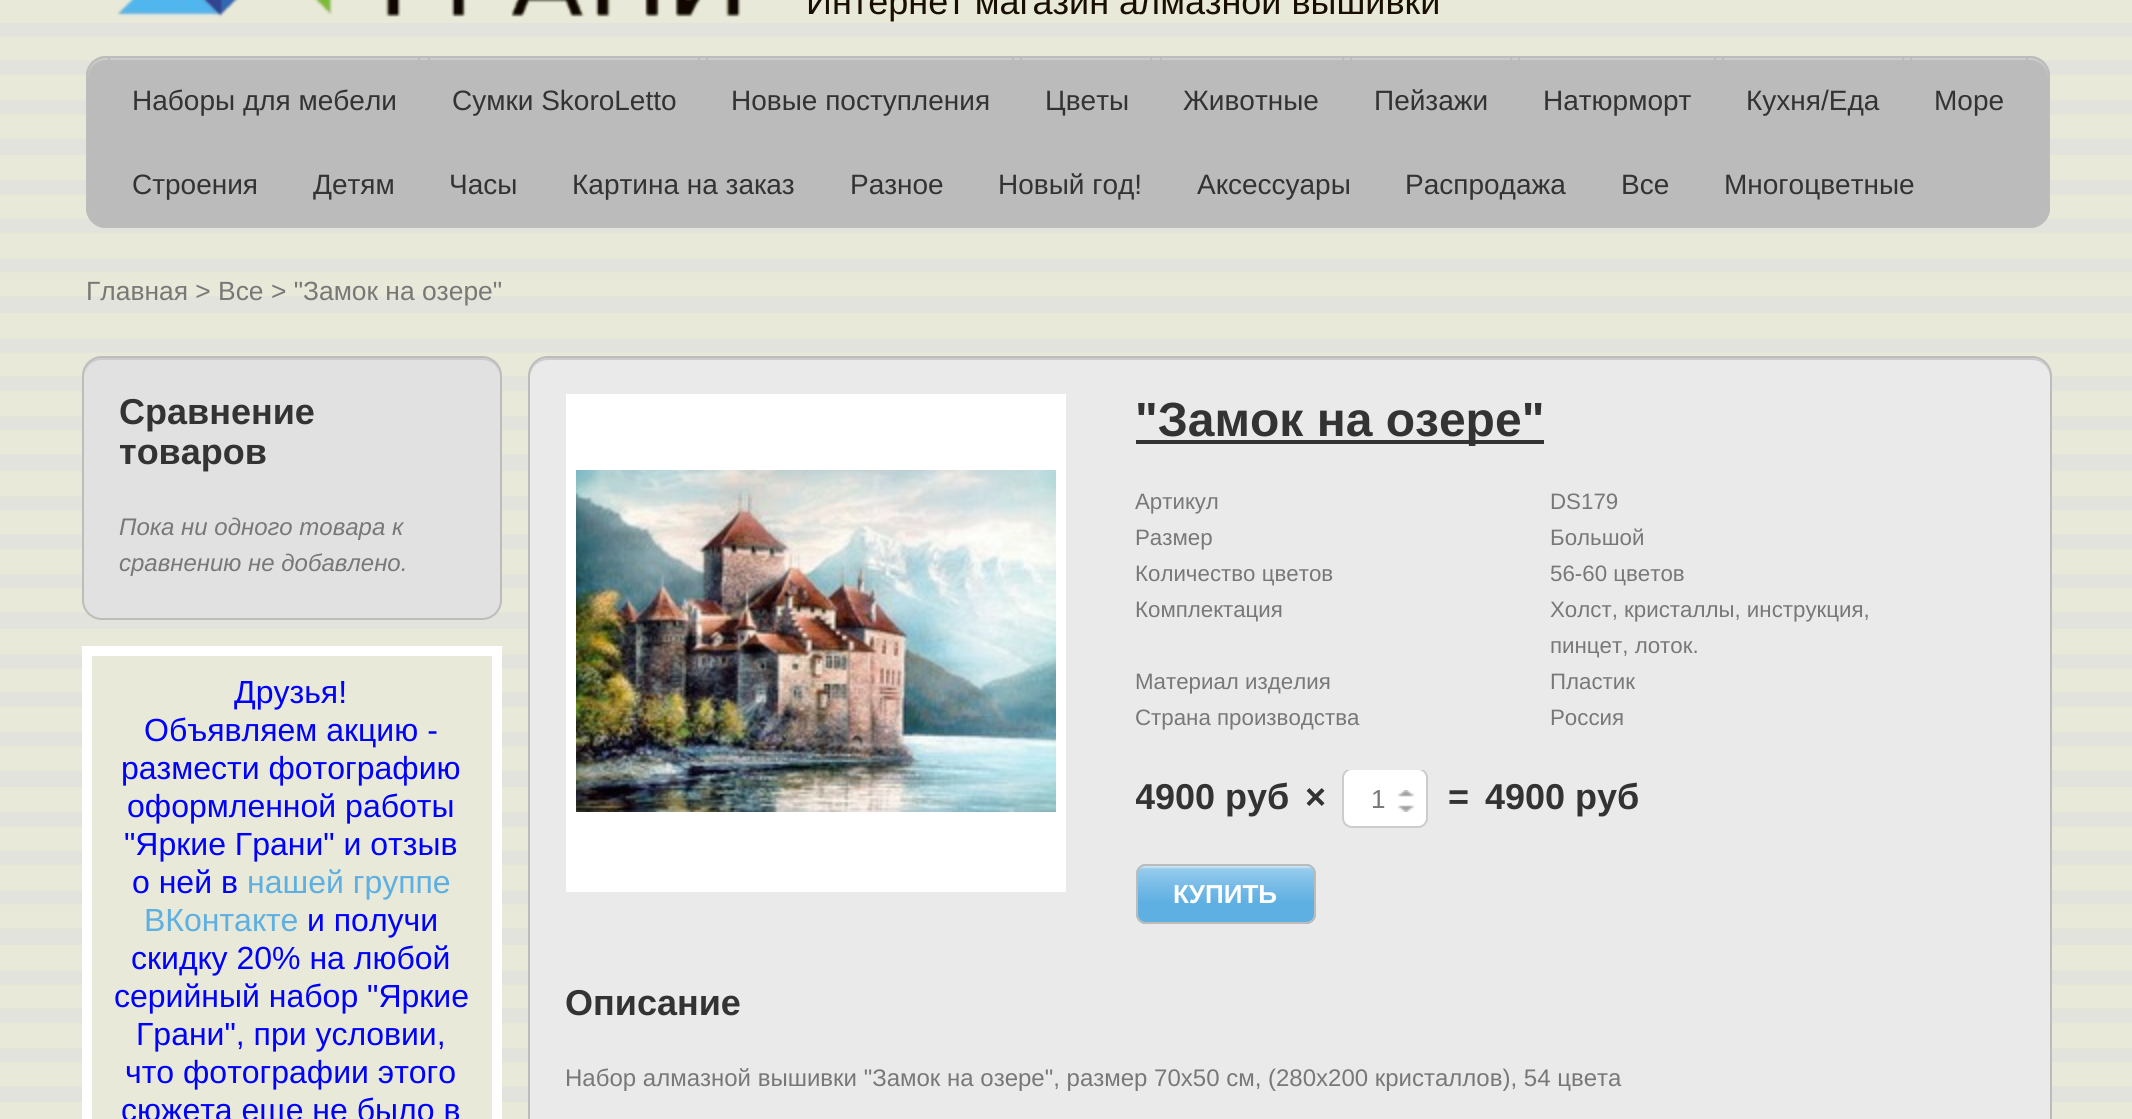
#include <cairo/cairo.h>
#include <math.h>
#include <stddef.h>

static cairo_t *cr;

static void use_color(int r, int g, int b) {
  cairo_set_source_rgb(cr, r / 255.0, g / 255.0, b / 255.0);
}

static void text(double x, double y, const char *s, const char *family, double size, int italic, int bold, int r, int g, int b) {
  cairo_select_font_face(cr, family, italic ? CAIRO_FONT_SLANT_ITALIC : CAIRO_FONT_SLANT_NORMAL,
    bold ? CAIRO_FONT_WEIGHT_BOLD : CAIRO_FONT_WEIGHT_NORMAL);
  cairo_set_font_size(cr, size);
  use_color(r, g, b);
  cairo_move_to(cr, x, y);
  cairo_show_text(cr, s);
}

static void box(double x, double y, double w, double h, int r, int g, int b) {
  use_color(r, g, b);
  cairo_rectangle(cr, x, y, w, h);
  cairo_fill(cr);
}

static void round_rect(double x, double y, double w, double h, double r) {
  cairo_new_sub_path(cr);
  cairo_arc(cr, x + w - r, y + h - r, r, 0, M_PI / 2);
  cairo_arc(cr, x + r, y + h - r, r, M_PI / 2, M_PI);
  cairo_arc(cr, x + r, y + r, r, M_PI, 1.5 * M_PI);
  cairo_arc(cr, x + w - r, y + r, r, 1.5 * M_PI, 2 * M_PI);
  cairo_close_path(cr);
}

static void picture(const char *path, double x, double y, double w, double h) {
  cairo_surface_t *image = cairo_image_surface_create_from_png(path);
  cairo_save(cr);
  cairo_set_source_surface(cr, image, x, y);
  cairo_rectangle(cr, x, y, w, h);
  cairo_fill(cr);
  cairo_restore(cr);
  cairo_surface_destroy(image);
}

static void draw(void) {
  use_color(232, 233, 216);
  cairo_paint(cr);
  picture("img_01.png", 0, 23, 2132, 1079);
  picture("img_02.png", 117, 0, 624, 17);
  use_color(187, 187, 188);
  round_rect(86, 56, 1964, 172, 20);
  cairo_fill(cr);
  use_color(204, 204, 204);
  cairo_new_path(cr);
  cairo_move_to(cr, 106, 60);
  cairo_line_to(cr, 2030, 60);
  cairo_curve_to(cr, 2040, 60, 2048, 68, 2048, 78);
  cairo_line_to(cr, 2048, 76);
  cairo_curve_to(cr, 2048, 66, 2040, 58, 2030, 58);
  cairo_line_to(cr, 106, 58);
  cairo_curve_to(cr, 96, 58, 88, 66, 88, 76);
  cairo_line_to(cr, 88, 78);
  cairo_curve_to(cr, 88, 68, 96, 60, 106, 60);
  cairo_close_path(cr);
  cairo_fill(cr);
  round_rect(87, 57, 1962, 170, 19);
  use_color(188, 189, 186);
  cairo_stroke(cr);
  box(418, 58, 2, 2, 187, 187, 188);
  box(108, 58, 2, 2, 187, 187, 188);
  box(698, 58, 2, 2, 187, 187, 188);
  box(428, 58, 2, 2, 187, 187, 188);
  box(1012, 58, 2, 2, 187, 187, 188);
  box(706, 58, 2, 2, 187, 187, 188);
  box(1150, 58, 2, 2, 187, 187, 188);
  box(1020, 58, 2, 2, 187, 187, 188);
  box(1342, 58, 2, 2, 187, 187, 188);
  box(1160, 58, 2, 2, 187, 187, 188);
  box(1510, 58, 2, 2, 187, 187, 188);
  box(1350, 58, 2, 2, 187, 187, 188);
  box(1714, 58, 2, 2, 187, 187, 188);
  box(1518, 58, 2, 2, 187, 187, 188);
  box(1902, 58, 2, 2, 187, 187, 188);
  box(1722, 58, 2, 2, 187, 187, 188);
  box(2026, 58, 2, 2, 187, 187, 188);
  box(1910, 58, 2, 2, 187, 187, 188);
  use_color(225, 225, 226);
  round_rect(82, 356, 420, 264, 20);
  cairo_fill(cr);
  use_color(204, 204, 204);
  cairo_new_path(cr);
  cairo_move_to(cr, 102, 360);
  cairo_line_to(cr, 482, 360);
  cairo_curve_to(cr, 492, 360, 500, 368, 500, 378);
  cairo_line_to(cr, 500, 376);
  cairo_curve_to(cr, 500, 366, 492, 358, 482, 358);
  cairo_line_to(cr, 102, 358);
  cairo_curve_to(cr, 92, 358, 84, 366, 84, 376);
  cairo_line_to(cr, 84, 378);
  cairo_curve_to(cr, 84, 368, 92, 360, 102, 360);
  cairo_close_path(cr);
  cairo_fill(cr);
  round_rect(83, 357, 418, 262, 19);
  use_color(188, 189, 186);
  cairo_stroke(cr);
  box(92, 656, 400, 446, 232, 233, 216);
  cairo_rectangle(cr, 87, 651, 410, 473);
  use_color(255, 255, 255);
  cairo_set_line_width(cr, 10);
  cairo_stroke(cr);
  use_color(234, 234, 235);
  round_rect(528, 356, 1524, 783, 20);
  cairo_fill(cr);
  use_color(204, 204, 204);
  cairo_new_path(cr);
  cairo_move_to(cr, 548, 360);
  cairo_line_to(cr, 2032, 360);
  cairo_curve_to(cr, 2042, 360, 2050, 368, 2050, 378);
  cairo_line_to(cr, 2050, 376);
  cairo_curve_to(cr, 2050, 366, 2042, 358, 2032, 358);
  cairo_line_to(cr, 548, 358);
  cairo_curve_to(cr, 538, 358, 530, 366, 530, 376);
  cairo_line_to(cr, 530, 378);
  cairo_curve_to(cr, 530, 368, 538, 360, 548, 360);
  cairo_close_path(cr);
  cairo_fill(cr);
  round_rect(529, 357, 1522, 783, 19);
  use_color(188, 189, 186);
  cairo_set_line_width(cr, 2);
  cairo_stroke(cr);
  box(566, 394, 500, 498, 255, 255, 255);
  picture("img_03.png", 576, 470, 480, 342);
  box(1136, 440, 408, 4, 51, 51, 51);
  cairo_save(cr);
  cairo_rectangle(cr, 1136, 770, 830, 58);
  cairo_clip(cr);
  use_color(255, 255, 255);
  round_rect(1343, 769, 84, 58, 9);
  cairo_fill_preserve(cr);
  use_color(204, 204, 204);
  cairo_stroke(cr);
  cairo_restore(cr);
  picture("img_04.png", 1398, 790, 16, 7);
  picture("img_05.png", 1398, 805, 16, 7);
  use_color(94, 175, 226);
  round_rect(1136, 864, 180, 60, 10);
  cairo_fill(cr);
  picture("img_06.png", 1136, 866, 180, 35);
  round_rect(1137, 865, 178, 58, 9);
  use_color(188, 189, 186);
  cairo_stroke(cr);
  text(806, 14, "Интернет магазин алмазной вышивки", "Liberation Sans", 36, 0, 0, 24, 15, 0);
  text(132, 110, "Наборы для мебели", "Liberation Sans", 28, 0, 0, 51, 51, 51);
  text(452, 110, "Сумки SkoroLetto", "Liberation Sans", 28, 0, 0, 51, 51, 51);
  text(731, 110, "Новые поступления", "Liberation Sans", 28, 0, 0, 51, 51, 51);
  text(1045, 110, "Цветы", "Liberation Sans", 28, 0, 0, 51, 51, 51);
  text(1183, 110, "Животные", "Liberation Sans", 28, 0, 0, 51, 51, 51);
  text(1374, 110, "Пейзажи", "Liberation Sans", 28, 0, 0, 51, 51, 51);
  text(1543, 110, "Натюрморт", "Liberation Sans", 28, 0, 0, 51, 51, 51);
  text(1746, 110, "Кухня/Еда", "Liberation Sans", 28, 0, 0, 51, 51, 51);
  text(1934, 110, "Море", "Liberation Sans", 28, 0, 0, 51, 51, 51);
  text(132, 194, "Строения", "Liberation Sans", 28, 0, 0, 51, 51, 51);
  text(313, 194, "Детям", "Liberation Sans", 28, 0, 0, 51, 51, 51);
  text(449, 194, "Часы", "Liberation Sans", 28, 0, 0, 51, 51, 51);
  text(572, 194, "Картина на заказ", "Liberation Sans", 28, 0, 0, 51, 51, 51);
  text(850, 194, "Разное", "Liberation Sans", 28, 0, 0, 51, 51, 51);
  text(998, 194, "Новый год!", "Liberation Sans", 28, 0, 0, 51, 51, 51);
  text(1197, 194, "Аксессуары", "Liberation Sans", 28, 0, 0, 51, 51, 51);
  text(1405, 194, "Распродажа", "Liberation Sans", 28, 0, 0, 51, 51, 51);
  text(1621, 194, "Все", "Liberation Sans", 28, 0, 0, 51, 51, 51);
  text(1724, 194, "Многоцветные", "Liberation Sans", 28, 0, 0, 51, 51, 51);
  text(86, 300, "Главная > Все > \"Замок на озере\"", "Liberation Sans", 26.4, 0, 0, 121, 120, 120);
  text(119, 424, "Сравнение", "Liberation Sans", 36, 0, 1, 51, 51, 51);
  text(119, 464, "товаров", "Liberation Sans", 36, 0, 1, 51, 51, 51);
  text(119, 535, "Пока ни одного товара к", "Liberation Sans", 24, 1, 0, 121, 120, 120);
  text(119, 571, "сравнению не добавлено.", "Liberation Sans", 24, 1, 0, 121, 120, 120);
  text(234, 703, "Друзья!", "Liberation Sans", 32, 0, 0, 0, 0, 255);
  text(144, 741, "Объявляем акцию -", "Liberation Sans", 32, 0, 0, 0, 0, 255);
  text(121, 779, "размести фотографию", "Liberation Sans", 32, 0, 0, 0, 0, 255);
  text(127, 817, "оформленной работы", "Liberation Sans", 32, 0, 0, 0, 0, 255);
  text(124, 855, "\"Яркие Грани\" и отзыв", "Liberation Sans", 32, 0, 0, 0, 0, 255);
  text(132, 893, "о ней в", "Liberation Sans", 32, 0, 0, 0, 0, 255);
  text(247, 893, "нашей группе", "Liberation Sans", 32, 0, 0, 94, 175, 226);
  text(144, 931, "ВКонтакте", "Liberation Sans", 32, 0, 0, 94, 175, 226);
  text(307, 931, "и получи", "Liberation Sans", 32, 0, 0, 0, 0, 255);
  text(131, 969, "скидку 20% на любой", "Liberation Sans", 32, 0, 0, 0, 0, 255);
  text(114, 1007, "серийный набор \"Яркие", "Liberation Sans", 32, 0, 0, 0, 0, 255);
  text(136, 1045, "Грани\", при условии,", "Liberation Sans", 32, 0, 0, 0, 0, 255);
  text(125, 1083, "что фотографии этого", "Liberation Sans", 32, 0, 0, 0, 0, 255);
  text(121, 1121, "сюжета еще не было в", "Liberation Sans", 32, 0, 0, 0, 0, 255);
  text(1135, 436, "\"Замок на озере\"", "Liberation Sans", 48, 0, 1, 51, 51, 51);
  text(1135, 509, "Артикул", "Liberation Sans", 22.3, 0, 0, 121, 120, 120);
  text(1550, 509, "DS179", "Liberation Sans", 22.3, 0, 0, 121, 120, 120);
  text(1135, 545, "Размер", "Liberation Sans", 22.3, 0, 0, 121, 120, 120);
  text(1550, 545, "Большой", "Liberation Sans", 22.3, 0, 0, 121, 120, 120);
  text(1135, 581, "Количество цветов", "Liberation Sans", 22.3, 0, 0, 121, 120, 120);
  text(1550, 581, "56-60 цветов", "Liberation Sans", 22.3, 0, 0, 121, 120, 120);
  text(1135, 617, "Комплектация", "Liberation Sans", 22.3, 0, 0, 121, 120, 120);
  text(1550, 617, "Холст, кристаллы, инструкция,", "Liberation Sans", 22.3, 0, 0, 121, 120, 120);
  text(1550, 653, "пинцет, лоток.", "Liberation Sans", 22.3, 0, 0, 121, 120, 120);
  text(1135, 689, "Материал изделия", "Liberation Sans", 22.3, 0, 0, 121, 120, 120);
  text(1550, 689, "Пластик", "Liberation Sans", 22.3, 0, 0, 121, 120, 120);
  text(1135, 725, "Страна производства", "Liberation Sans", 22.3, 0, 0, 121, 120, 120);
  text(1550, 725, "Россия", "Liberation Sans", 22.3, 0, 0, 121, 120, 120);
  cairo_save(cr);
  cairo_rectangle(cr, 1136, 770, 830, 58);
  cairo_clip(cr);
  text(1135, 809, "4900 руб", "Liberation Sans", 36, 0, 1, 51, 51, 51);
  cairo_restore(cr);
  text(1305, 809, "×", "Liberation Sans", 36, 0, 1, 51, 51, 51);
  text(1371, 808, "1", "Liberation Sans", 26, 0, 0, 121, 120, 120);
  text(1448, 809, "=", "Liberation Sans", 36, 0, 1, 51, 51, 51);
  text(1485, 809, "4900 руб", "Liberation Sans", 36, 0, 1, 51, 51, 51);
  text(1173, 903, "КУПИТЬ", "Liberation Sans", 26, 0, 1, 255, 255, 255);
  text(565, 1015, "Описание", "Liberation Sans", 36, 0, 1, 51, 51, 51);
  text(565, 1086, "Набор алмазной вышивки \"Замок на озере\", размер 70х50 см, (280х200 кристаллов), 54 цвета", "Liberation Sans", 24, 0, 0, 121, 120, 120);
}

int main(void) {
  cairo_surface_t *surface = cairo_image_surface_create(CAIRO_FORMAT_RGB24, 2132, 1119);
  cr = cairo_create(surface);
  cairo_font_options_t *options = cairo_font_options_create();
  cairo_font_options_set_hint_metrics(options, CAIRO_HINT_METRICS_OFF);
  cairo_font_options_set_hint_style(options, CAIRO_HINT_STYLE_NONE);
  cairo_set_font_options(cr, options);
  cairo_set_miter_limit(cr, 4);
  draw();
  cairo_surface_write_to_png(surface, "out.png");
  cairo_font_options_destroy(options);
  cairo_destroy(cr);
  cairo_surface_destroy(surface);
  return 0;
}
